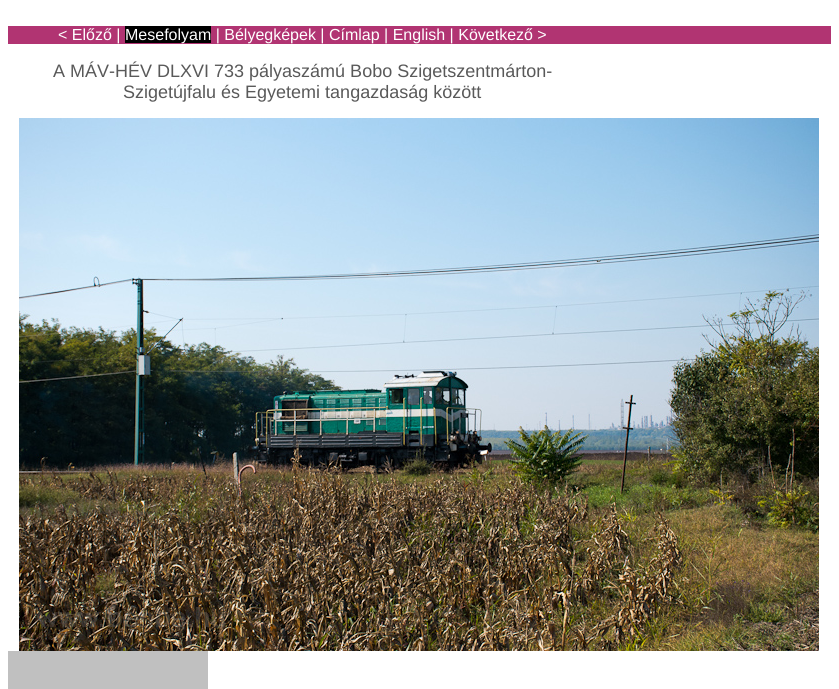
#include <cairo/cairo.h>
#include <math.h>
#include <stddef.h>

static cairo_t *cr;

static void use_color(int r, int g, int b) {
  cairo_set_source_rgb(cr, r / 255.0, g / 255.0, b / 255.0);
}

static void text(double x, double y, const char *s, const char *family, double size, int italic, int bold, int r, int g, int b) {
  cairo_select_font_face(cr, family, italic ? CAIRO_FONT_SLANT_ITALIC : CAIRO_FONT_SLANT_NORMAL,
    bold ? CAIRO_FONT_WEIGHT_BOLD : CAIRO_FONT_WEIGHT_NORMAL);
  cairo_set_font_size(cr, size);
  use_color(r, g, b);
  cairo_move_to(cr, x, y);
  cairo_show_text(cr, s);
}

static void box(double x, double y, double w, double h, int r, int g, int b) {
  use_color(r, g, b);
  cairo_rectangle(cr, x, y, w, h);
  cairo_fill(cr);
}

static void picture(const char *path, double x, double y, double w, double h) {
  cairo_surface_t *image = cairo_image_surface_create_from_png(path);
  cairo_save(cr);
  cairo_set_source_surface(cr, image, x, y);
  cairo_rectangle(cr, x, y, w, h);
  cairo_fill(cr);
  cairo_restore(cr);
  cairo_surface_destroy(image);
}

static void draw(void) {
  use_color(255, 255, 255);
  cairo_paint(cr);
  box(8, 26, 823, 18, 177, 52, 114);
  box(125, 26, 86, 17, 0, 0, 0);
  picture("img_01.png", 19, 118, 800, 533);
  box(8, 651, 200, 38, 192, 192, 192);
  text(58, 40, "< Előző |", "Liberation Sans", 16, 0, 0, 255, 255, 255);
  text(125, 40, "Mesefolyam | Bélyegképek | Címlap | English | Következő >", "Liberation Sans", 16, 0, 0, 255, 255, 255);
  text(53, 77, "A MÁV-HÉV DLXVI 733 pályaszámú Bobo Szigetszentmárton-", "Liberation Sans", 18, 0, 0, 89, 89, 89);
  text(123, 98, "Szigetújfalu és Egyetemi tangazdaság között", "Liberation Sans", 18, 0, 0, 89, 89, 89);
}

int main(void) {
  cairo_surface_t *surface = cairo_image_surface_create(CAIRO_FORMAT_RGB24, 839, 689);
  cr = cairo_create(surface);
  cairo_font_options_t *options = cairo_font_options_create();
  cairo_font_options_set_hint_metrics(options, CAIRO_HINT_METRICS_OFF);
  cairo_font_options_set_hint_style(options, CAIRO_HINT_STYLE_NONE);
  cairo_set_font_options(cr, options);
  cairo_set_miter_limit(cr, 4);
  draw();
  cairo_surface_write_to_png(surface, "out.png");
  cairo_font_options_destroy(options);
  cairo_destroy(cr);
  cairo_surface_destroy(surface);
  return 0;
}
